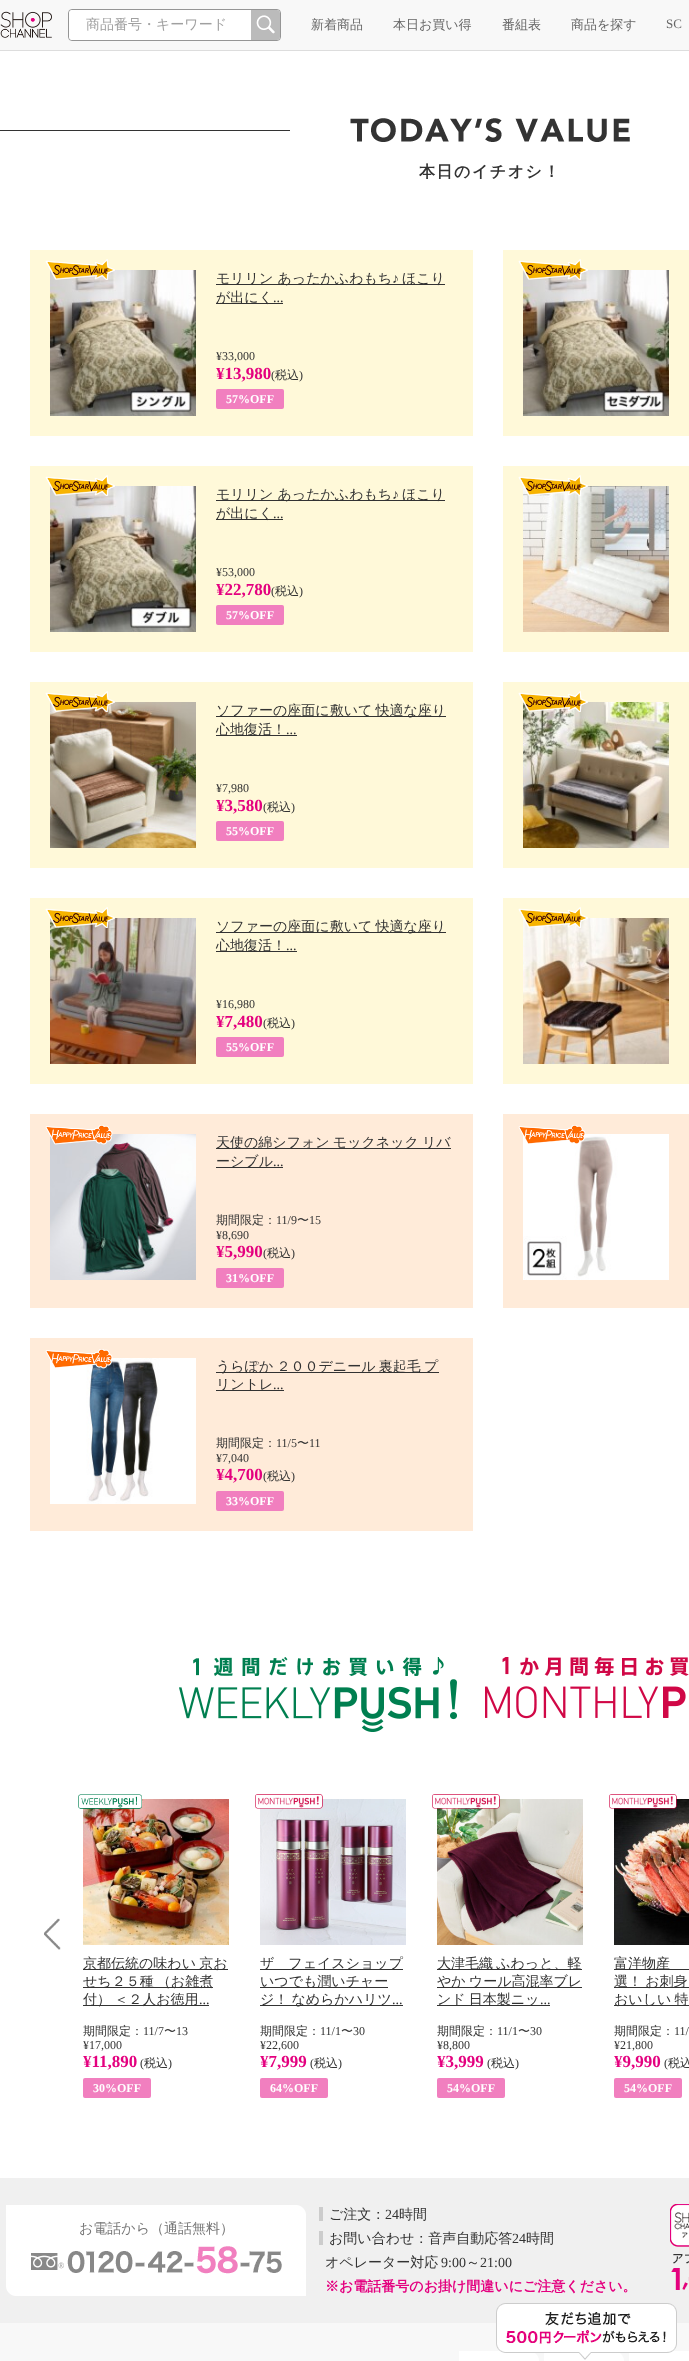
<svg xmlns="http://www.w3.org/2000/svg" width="689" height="2361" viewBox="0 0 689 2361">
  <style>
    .t1 { font: 500 14px WenQuanYi Zen Hei; fill: #a0a0a0; }
    .t2 { font: 500 13px WenQuanYi Zen Hei; fill: #666; }
    .t3 { font: 13px Liberation Serif; fill: #666; }
    .t4 { font: bold 16px WenQuanYi Zen Hei; letter-spacing: 1.5px; fill: #333; }
    .t5 { font: 500 14px WenQuanYi Zen Hei; fill: #333; }
    .t6 { font: 14px Liberation Serif; fill: #333; }
    .t7 { font: 12px Liberation Serif; fill: #333; }
    .t8 { font: bold 17px Liberation Serif; fill: #e4007f; }
    .t9 { font: 500 12px WenQuanYi Zen Hei; fill: #333; }
    .t10 { font: bold 12px Liberation Serif; fill: #fff; }
    .t11 { font: 500 14px WenQuanYi Zen Hei; fill: #777; }
    .t12 { font: bold 14px WenQuanYi Zen Hei; fill: #e4007f; }
  </style>
  <rect width="100%" height="100%" fill="#fff"/>
  <rect x="0" y="0" width="689" height="50" fill="#f8f8f8"/>
  <rect x="0" y="50" width="689" height="1" fill="#ddd"/>
  <image x="0" y="11" width="52" height="27" href="images/1.png"/>
  <rect x="68.5" y="9.5" width="212" height="31" rx="3.5" fill="none" stroke="#959595"/>
  <path d="M72 10H251V40H72C70.5 40 69 38.5 69 37V13C69 11.5 70.5 10 72 10Z" fill="#fff"/>
  <text x="86" y="29" class="t1">商品番号・キーワード</text>
  <path d="M251 10H277C278.5 10 280 11.5 280 13V37C280 38.5 278.5 40 277 40H251Z" fill="#bbb"/>
  <image x="256" y="15" width="19" height="19" href="images/2.png"/>
  <text x="311" y="29" class="t2">新着商品</text>
  <text x="393" y="29" class="t2">本日お買い得</text>
  <text x="502" y="29" class="t2">番組表</text>
  <text x="571" y="29" class="t2">商品を探す</text>
  <text x="666" y="28" class="t3">SC</text>
  <image x="0" y="118" width="630" height="24" href="images/3.png"/>
  <text x="419" y="177" class="t4">本日のイチオシ！</text>
  <rect x="30" y="250" width="443" height="186" fill="#fff9d9"/>
  <image x="50" y="270" width="146" height="146" href="images/5.png"/>
  <image x="45" y="259" width="70" height="21" href="images/4.png"/>
  <rect x="216" y="284" width="229" height="1" fill="#333"/>
  <text x="216" y="283" class="t5">モリリン あったかふわもち</text>
  <text x="392" y="283" class="t6">♪</text>
  <text x="402" y="283" class="t5">ほこり</text>
  <rect x="216" y="303" width="67" height="1" fill="#333"/>
  <text x="216" y="302" class="t5">が出にく</text>
  <text x="273" y="302" class="t6">...</text>
  <text x="216" y="360" class="t7">¥33,000</text>
  <text x="216" y="379" class="t8">¥13,980</text>
  <text x="271" y="379" class="t7">(</text>
  <text x="275" y="379" class="t9">税込</text>
  <text x="299" y="379" class="t7">)</text>
  <rect x="216" y="389" width="68" height="20" rx="2" fill="#f17fbf"/>
  <text x="226" y="403" class="t10">57%OFF</text>
  <rect x="503" y="250" width="186" height="186" fill="#fff9d9"/>
  <image x="523" y="270" width="146" height="146" href="images/6.png"/>
  <image x="518" y="259" width="70" height="21" href="images/4.png"/>
  <rect x="30" y="466" width="443" height="186" fill="#fff9d9"/>
  <image x="50" y="486" width="146" height="146" href="images/7.png"/>
  <image x="45" y="475" width="70" height="21" href="images/4.png"/>
  <rect x="216" y="500" width="229" height="1" fill="#333"/>
  <text x="216" y="499" class="t5">モリリン あったかふわもち</text>
  <text x="392" y="499" class="t6">♪</text>
  <text x="402" y="499" class="t5">ほこり</text>
  <rect x="216" y="519" width="67" height="1" fill="#333"/>
  <text x="216" y="518" class="t5">が出にく</text>
  <text x="273" y="518" class="t6">...</text>
  <text x="216" y="576" class="t7">¥53,000</text>
  <text x="216" y="595" class="t8">¥22,780</text>
  <text x="271" y="595" class="t7">(</text>
  <text x="275" y="595" class="t9">税込</text>
  <text x="299" y="595" class="t7">)</text>
  <rect x="216" y="605" width="68" height="20" rx="2" fill="#f17fbf"/>
  <text x="226" y="619" class="t10">57%OFF</text>
  <rect x="503" y="466" width="186" height="186" fill="#fff9d9"/>
  <image x="523" y="486" width="146" height="146" href="images/9.png"/>
  <image x="518" y="475" width="70" height="21" href="images/8.png"/>
  <rect x="30" y="682" width="443" height="186" fill="#fff9d9"/>
  <image x="50" y="702" width="146" height="146" href="images/11.png"/>
  <image x="45" y="691" width="70" height="21" href="images/10.png"/>
  <rect x="216" y="716" width="230" height="1" fill="#333"/>
  <text x="216" y="715" word-spacing="-1" class="t5">ソファーの座面に敷いて 快適な座り</text>
  <rect x="216" y="735" width="81" height="1" fill="#333"/>
  <text x="216" y="734" class="t5">心地復活！</text>
  <text x="286" y="734" class="t6">...</text>
  <text x="216" y="792" class="t7">¥7,980</text>
  <text x="216" y="811" class="t8">¥3,580</text>
  <text x="263" y="811" class="t7">(</text>
  <text x="267" y="811" class="t9">税込</text>
  <text x="291" y="811" class="t7">)</text>
  <rect x="216" y="821" width="68" height="20" rx="2" fill="#f17fbf"/>
  <text x="226" y="835" class="t10">55%OFF</text>
  <rect x="503" y="682" width="186" height="186" fill="#fff9d9"/>
  <image x="523" y="702" width="146" height="146" href="images/13.png"/>
  <image x="518" y="691" width="70" height="21" href="images/12.png"/>
  <rect x="30" y="898" width="443" height="186" fill="#fff9d9"/>
  <image x="50" y="918" width="146" height="146" href="images/15.png"/>
  <image x="45" y="907" width="70" height="21" href="images/14.png"/>
  <rect x="216" y="932" width="230" height="1" fill="#333"/>
  <text x="216" y="931" word-spacing="-1" class="t5">ソファーの座面に敷いて 快適な座り</text>
  <rect x="216" y="951" width="81" height="1" fill="#333"/>
  <text x="216" y="950" class="t5">心地復活！</text>
  <text x="286" y="950" class="t6">...</text>
  <text x="216" y="1008" class="t7">¥16,980</text>
  <text x="216" y="1027" class="t8">¥7,480</text>
  <text x="263" y="1027" class="t7">(</text>
  <text x="267" y="1027" class="t9">税込</text>
  <text x="291" y="1027" class="t7">)</text>
  <rect x="216" y="1037" width="68" height="20" rx="2" fill="#f17fbf"/>
  <text x="226" y="1051" class="t10">55%OFF</text>
  <rect x="503" y="898" width="186" height="186" fill="#fff9d9"/>
  <image x="523" y="918" width="146" height="146" href="images/17.png"/>
  <image x="518" y="907" width="70" height="21" href="images/16.png"/>
  <rect x="30" y="1114" width="443" height="194" fill="#ffebd9"/>
  <image x="50" y="1134" width="146" height="146" href="images/19.png"/>
  <image x="45" y="1125" width="68" height="20" href="images/18.png"/>
  <rect x="216" y="1148" width="235" height="1" fill="#333"/>
  <text x="216" y="1147" word-spacing="-1" class="t5">天使の綿シフォン モックネック リバ</text>
  <rect x="216" y="1167" width="67" height="1" fill="#333"/>
  <text x="216" y="1166" class="t5">ーシブル</text>
  <text x="273" y="1166" class="t6">...</text>
  <text x="216" y="1224" class="t9">期間限定：</text>
  <text x="276" y="1224" class="t7">11/9</text>
  <text x="297" y="1224" class="t9">〜</text>
  <text x="309" y="1224" class="t7">15</text>
  <text x="216" y="1239" class="t7">¥8,690</text>
  <text x="216" y="1257" class="t8">¥5,990</text>
  <text x="263" y="1257" class="t7">(</text>
  <text x="267" y="1257" class="t9">税込</text>
  <text x="291" y="1257" class="t7">)</text>
  <rect x="216" y="1268" width="68" height="20" rx="2" fill="#f17fbf"/>
  <text x="226" y="1282" class="t10">31%OFF</text>
  <rect x="503" y="1114" width="186" height="194" fill="#ffebd9"/>
  <image x="523" y="1134" width="146" height="146" href="images/21.png"/>
  <image x="518" y="1125" width="68" height="19" href="images/20.png"/>
  <rect x="30" y="1338" width="443" height="193" fill="#ffebd9"/>
  <image x="50" y="1358" width="146" height="146" href="images/23.png"/>
  <image x="45" y="1349" width="68" height="20" href="images/22.png"/>
  <rect x="216" y="1372" width="223" height="1" fill="#333"/>
  <text x="216" y="1371" word-spacing="-1" class="t5">うらぽか ２００デニール 裏起毛 プ</text>
  <rect x="216" y="1390" width="68" height="1" fill="#333"/>
  <text x="216" y="1389" class="t5">リントレ</text>
  <text x="273" y="1389" class="t6">...</text>
  <text x="216" y="1447" class="t9">期間限定：</text>
  <text x="276" y="1447" class="t7">11/5</text>
  <text x="297" y="1447" class="t9">〜</text>
  <text x="309" y="1447" class="t7">11</text>
  <text x="216" y="1462" class="t7">¥7,040</text>
  <text x="216" y="1480" class="t8">¥4,700</text>
  <text x="263" y="1480" class="t7">(</text>
  <text x="267" y="1480" class="t9">税込</text>
  <text x="291" y="1480" class="t7">)</text>
  <rect x="216" y="1491" width="68" height="20" rx="2" fill="#f17fbf"/>
  <text x="226" y="1505" class="t10">33%OFF</text>
  <image x="179" y="1657" width="510" height="75" href="images/24.png"/>
  <image x="44" y="1918" width="17" height="32" href="images/25.png"/>
  <image x="83" y="1799" width="146" height="146" href="images/27.png"/>
  <image x="78" y="1794" width="64" height="15" href="images/26.png"/>
  <rect x="83" y="1969" width="145" height="1" fill="#333"/>
  <text x="83" y="1968" word-spacing="-1" class="t5">京都伝統の味わい 京お</text>
  <rect x="83" y="1987" width="130" height="1" fill="#333"/>
  <text x="83" y="1986" word-spacing="-1" class="t5">せち２５種 （お雑煮</text>
  <rect x="83" y="2005" width="126" height="1" fill="#333"/>
  <text x="83" y="2004" word-spacing="-1" class="t5">付） ＜２人お徳用</text>
  <text x="199" y="2004" class="t6">...</text>
  <text x="83" y="2035" class="t9">期間限定：</text>
  <text x="143" y="2035" class="t7">11/7</text>
  <text x="164" y="2035" class="t9">〜</text>
  <text x="176" y="2035" class="t7">13</text>
  <text x="83" y="2049" class="t7">¥17,000</text>
  <text x="83" y="2067" class="t8">¥11,890</text>
  <text x="140" y="2067" class="t7">(</text>
  <text x="144" y="2067" class="t9">税込</text>
  <text x="168" y="2067" class="t7">)</text>
  <rect x="83" y="2078" width="68" height="20" rx="2" fill="#f17fbf"/>
  <text x="93" y="2092" class="t10">30%OFF</text>
  <image x="260" y="1799" width="146" height="146" href="images/29.png"/>
  <image x="255" y="1794" width="68" height="15" href="images/28.png"/>
  <rect x="260" y="1969" width="143" height="1" fill="#333"/>
  <text x="260" y="1968" class="t5">ザ　フェイスショップ</text>
  <rect x="260" y="1987" width="128" height="1" fill="#333"/>
  <text x="260" y="1986" class="t5">いつでも潤いチャー</text>
  <rect x="260" y="2005" width="143" height="1" fill="#333"/>
  <text x="260" y="2004" word-spacing="-1" class="t5">ジ！ なめらかハリツ</text>
  <text x="392" y="2004" class="t6">...</text>
  <text x="260" y="2035" class="t9">期間限定：</text>
  <text x="320" y="2035" class="t7">11/1</text>
  <text x="341" y="2035" class="t9">〜</text>
  <text x="353" y="2035" class="t7">30</text>
  <text x="260" y="2049" class="t7">¥22,600</text>
  <text x="260" y="2067" class="t8">¥7,999</text>
  <text x="310" y="2067" class="t7">(</text>
  <text x="314" y="2067" class="t9">税込</text>
  <text x="338" y="2067" class="t7">)</text>
  <rect x="260" y="2078" width="68" height="20" rx="2" fill="#f17fbf"/>
  <text x="270" y="2092" class="t10">64%OFF</text>
  <image x="437" y="1799" width="146" height="146" href="images/31.png"/>
  <image x="432" y="1794" width="68" height="15" href="images/30.png"/>
  <rect x="437" y="1969" width="145" height="1" fill="#333"/>
  <text x="437" y="1968" word-spacing="-1" class="t5">大津毛織 ふわっと、軽</text>
  <rect x="437" y="1987" width="145" height="1" fill="#333"/>
  <text x="437" y="1986" word-spacing="-1" class="t5">やか ウール高混率ブレ</text>
  <rect x="437" y="2005" width="113" height="1" fill="#333"/>
  <text x="437" y="2004" word-spacing="-1" class="t5">ンド 日本製ニッ</text>
  <text x="540" y="2004" class="t6">...</text>
  <text x="437" y="2035" class="t9">期間限定：</text>
  <text x="497" y="2035" class="t7">11/1</text>
  <text x="518" y="2035" class="t9">〜</text>
  <text x="530" y="2035" class="t7">30</text>
  <text x="437" y="2049" class="t7">¥8,800</text>
  <text x="437" y="2067" class="t8">¥3,999</text>
  <text x="487" y="2067" class="t7">(</text>
  <text x="491" y="2067" class="t9">税込</text>
  <text x="515" y="2067" class="t7">)</text>
  <rect x="437" y="2078" width="68" height="20" rx="2" fill="#f17fbf"/>
  <text x="447" y="2092" class="t10">54%OFF</text>
  <image x="614" y="1799" width="75" height="146" href="images/33.png"/>
  <image x="609" y="1794" width="68" height="15" href="images/32.png"/>
  <rect x="614" y="1969" width="75" height="1" fill="#333"/>
  <text x="614" y="1968" class="t5">富洋物産</text>
  <rect x="614" y="1987" width="75" height="1" fill="#333"/>
  <text x="614" y="1986" word-spacing="-1" class="t5">選！ お刺身</text>
  <rect x="614" y="2005" width="75" height="1" fill="#333"/>
  <text x="614" y="2004" word-spacing="-1" class="t5">おいしい 特</text>
  <text x="614" y="2035" class="t9">期間限定：</text>
  <text x="674" y="2035" class="t7">11/</text>
  <text x="614" y="2049" class="t7">¥21,800</text>
  <text x="614" y="2067" class="t8">¥9,990</text>
  <text x="664" y="2067" class="t7">(</text>
  <text x="668" y="2067" class="t9">税込</text>
  <rect x="614" y="2078" width="68" height="20" rx="2" fill="#f17fbf"/>
  <text x="624" y="2092" class="t10">54%OFF</text>
  <rect x="0" y="2178" width="689" height="145" fill="#f0f0f0"/>
  <path d="M6 2205H296C301.5 2205 306 2209.5 306 2215V2296H16C10.5 2296 6 2291.5 6 2286Z" fill="#fff"/>
  <text x="79" y="2233" class="t11">お電話から（通話無料）</text>
  <image x="31" y="2246" width="251" height="28" href="images/34.png"/>
  <rect x="319" y="2207" width="4" height="14" fill="#ccc"/>
  <text x="329" y="2219" class="t5">ご注文：</text>
  <text x="385" y="2219" class="t6">24</text>
  <text x="399" y="2219" class="t5">時間</text>
  <rect x="319" y="2231" width="4" height="14" fill="#ccc"/>
  <text x="329" y="2243" class="t5">お問い合わせ：音声自動応答</text>
  <text x="512" y="2243" class="t6">24</text>
  <text x="526" y="2243" class="t5">時間</text>
  <text x="325" y="2267" class="t5">オペレーター対応</text>
  <text x="441" y="2267" class="t6">9:00</text>
  <text x="466" y="2267" class="t5">～</text>
  <text x="480" y="2267" class="t6">21:00</text>
  <text x="325" y="2291" class="t12">※お電話番号のお掛け間違いにご注意ください。</text>
  <image x="670" y="2204" width="19" height="86" href="images/35.png"/>
  <rect x="0" y="2323" width="689" height="38" fill="#f8f8f8"/>
  <path d="M459 2351H529C534.5 2351 539 2355.5 539 2361V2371H469C463.5 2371 459 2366.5 459 2361Z" fill="#fff"/>
  <path d="M544 2351H614C619.5 2351 624 2355.5 624 2361V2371H554C548.5 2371 544 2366.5 544 2361Z" fill="#fff"/>
  <rect x="629" y="2351" width="60" height="10" fill="#fff"/>
  <image x="496" y="2303" width="181" height="57" href="images/36.png"/>
</svg>
